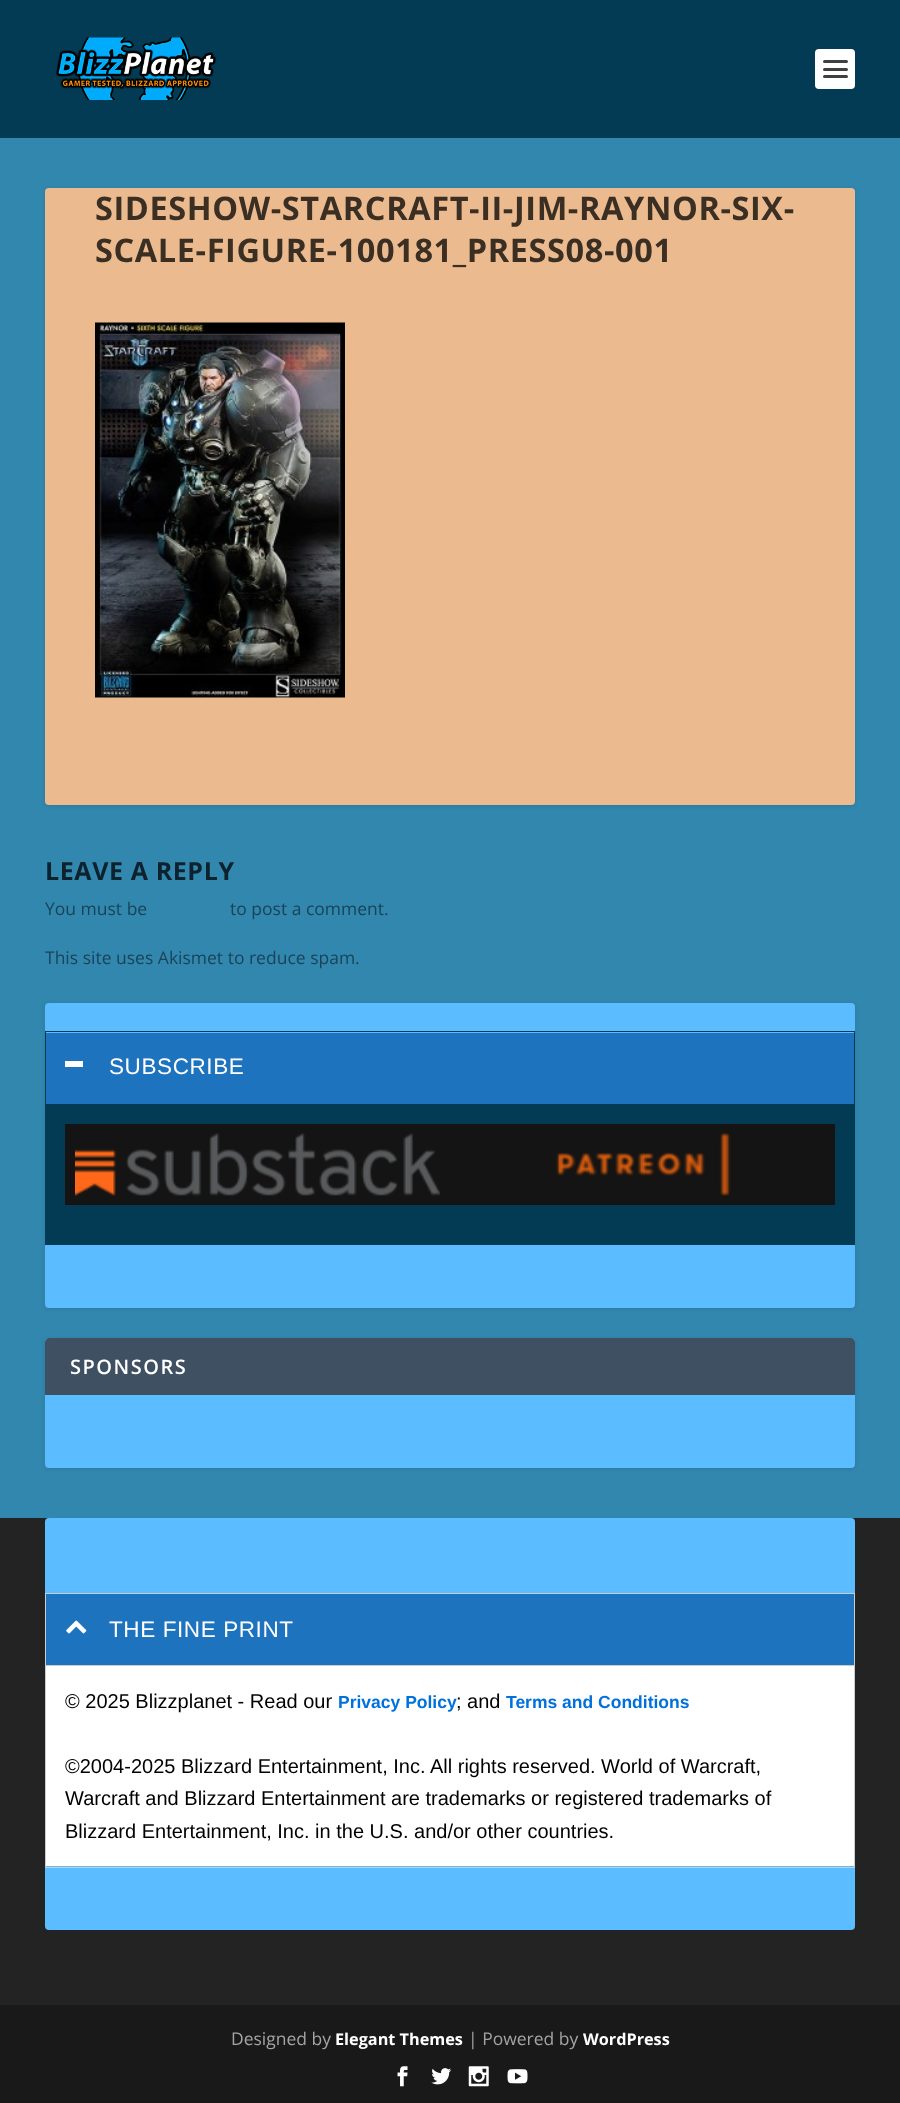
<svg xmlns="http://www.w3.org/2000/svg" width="900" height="2103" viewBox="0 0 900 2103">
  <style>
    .t1 { font: bold 32.5px Open Sans; letter-spacing: 0.6px; fill: #3b2f24; }
    .t2 { font: bold 25px Open Sans; letter-spacing: 0.6px; fill: #0d222c; }
    .t3 { font: 17.5px Open Sans; fill: #194458; }
    .t4 { font: 22.5px Liberation Sans; letter-spacing: 0.6px; fill: #fff; }
    .t5 { font: 600 20px Open Sans; letter-spacing: 1.5px; fill: #fff; }
    .t6 { font: 20px Liberation Sans; fill: #000; }
    .t7 { font: bold 17.5px Liberation Sans; fill: #0070dd; }
    .t8 { font: 17.5px Open Sans; fill: #a3a3a3; }
    .t9 { font: bold 16.25px Open Sans; fill: #fff; }
  </style>
  <rect width="100%" height="100%" fill="#3287af"/>
  <rect x="0" y="0" width="900" height="138" fill="#033b54"/>
  <image x="56" y="37" width="161" height="63" href="images/1.png"/>
  <rect x="815" y="49" width="40" height="40" rx="4" fill="#fff"/>
  <rect x="823" y="60" width="25" height="3" rx="1.5" fill="#404040"/>
  <rect x="823" y="68" width="25" height="3" rx="1.5" fill="#404040"/>
  <rect x="823" y="75" width="25" height="3" rx="1.5" fill="#404040"/>
  <rect x="45" y="189" width="810" height="617" rx="4" fill="#0000001a" filter="blur(2px)"/>
  <rect x="45" y="188" width="810" height="617" rx="4" fill="#ebbb8f"/>
  <text x="95" y="220" class="t1">SIDESHOW-STARCRAFT-II-JIM-RAYNOR-SIX-</text>
  <text x="95" y="262" class="t1">SCALE-FIGURE-100181_PRESS08-001</text>
  <image x="95" y="322" width="250" height="376" href="images/2.png"/>
  <text x="45" y="880" class="t2">LEAVE A REPLY</text>
  <text x="45" y="915" class="t3">You must be</text>
  <text x="230" y="915" class="t3">to post a comment.</text>
  <text x="45" y="964" class="t3">This site uses Akismet to reduce spam.</text>
  <rect x="45" y="1004" width="810" height="305" rx="4" fill="#0000001a" filter="blur(2px)"/>
  <rect x="45" y="1003" width="810" height="305" rx="4" fill="#5bbcff"/>
  <rect x="45.5" y="1031.5" width="809" height="213" fill="none" stroke="#033b54"/>
  <rect x="46" y="1033" width="808" height="71" fill="#1e73be"/>
  <rect x="65" y="1061" width="18" height="6" fill="#fff"/>
  <text x="109" y="1074" class="t4">SUBSCRIBE</text>
  <rect x="46" y="1104" width="808" height="140" fill="#033b54"/>
  <rect x="65" y="1124" width="770" height="81" fill="#141414"/>
  <image x="75" y="1133" width="365" height="63" href="images/3.png"/>
  <image x="556" y="1133" width="175" height="63" href="images/4.png"/>
  <rect x="45" y="1339" width="810" height="130" rx="4" fill="#0000001a" filter="blur(2px)"/>
  <rect x="45" y="1338" width="810" height="130" rx="4" fill="#5bbcff"/>
  <path d="M49 1338H851C853 1338 855 1340 855 1342V1395H45V1342C45 1340 47 1338 49 1338Z" fill="#3e5062"/>
  <text x="70" y="1374" class="t5">SPONSORS</text>
  <rect x="0" y="1518" width="900" height="487" fill="#232323"/>
  <rect x="45" y="1518" width="810" height="412" rx="4" fill="#5bbcff"/>
  <rect x="45.5" y="1593.5" width="809" height="274" fill="none" stroke="#ccc"/>
  <rect x="46" y="1594" width="808" height="71" fill="#1e73be"/>
  <image x="66" y="1620" width="21" height="14" href="images/5.png"/>
  <text x="109" y="1637" class="t4">THE FINE PRINT</text>
  <rect x="46" y="1666" width="808" height="200" fill="#fff"/>
  <rect x="46" y="1665" width="808" height="1" fill="#ccc"/>
  <text x="65" y="1708" class="t6">© 2025 Blizzplanet - Read our</text>
  <text x="338" y="1708" class="t7">Privacy Policy</text>
  <text x="456" y="1708" class="t6">; and</text>
  <text x="506" y="1708" class="t7">Terms and Conditions</text>
  <text x="65" y="1773" class="t6">©2004-2025 Blizzard Entertainment, Inc. All rights reserved. World of Warcraft,</text>
  <text x="65" y="1805" class="t6">Warcraft and Blizzard Entertainment are trademarks or registered trademarks of</text>
  <text x="65" y="1838" class="t6">Blizzard Entertainment, Inc. in the U.S. and/or other countries.</text>
  <rect x="0" y="2005" width="900" height="98" fill="#191919"/>
  <text x="231" y="2045" class="t8">Designed by</text>
  <text x="335" y="2045" class="t9">Elegant Themes</text>
  <text x="468" y="2045" class="t8">| Powered by</text>
  <text x="583" y="2045" class="t9">WordPress</text>
  <image x="397" y="2066" width="11" height="21" href="images/6.png"/>
  <image x="431" y="2068" width="21" height="17" href="images/7.png"/>
  <image x="468" y="2066" width="21" height="21" href="images/8.png"/>
  <image x="507" y="2069" width="21" height="15" href="images/9.png"/>
</svg>
